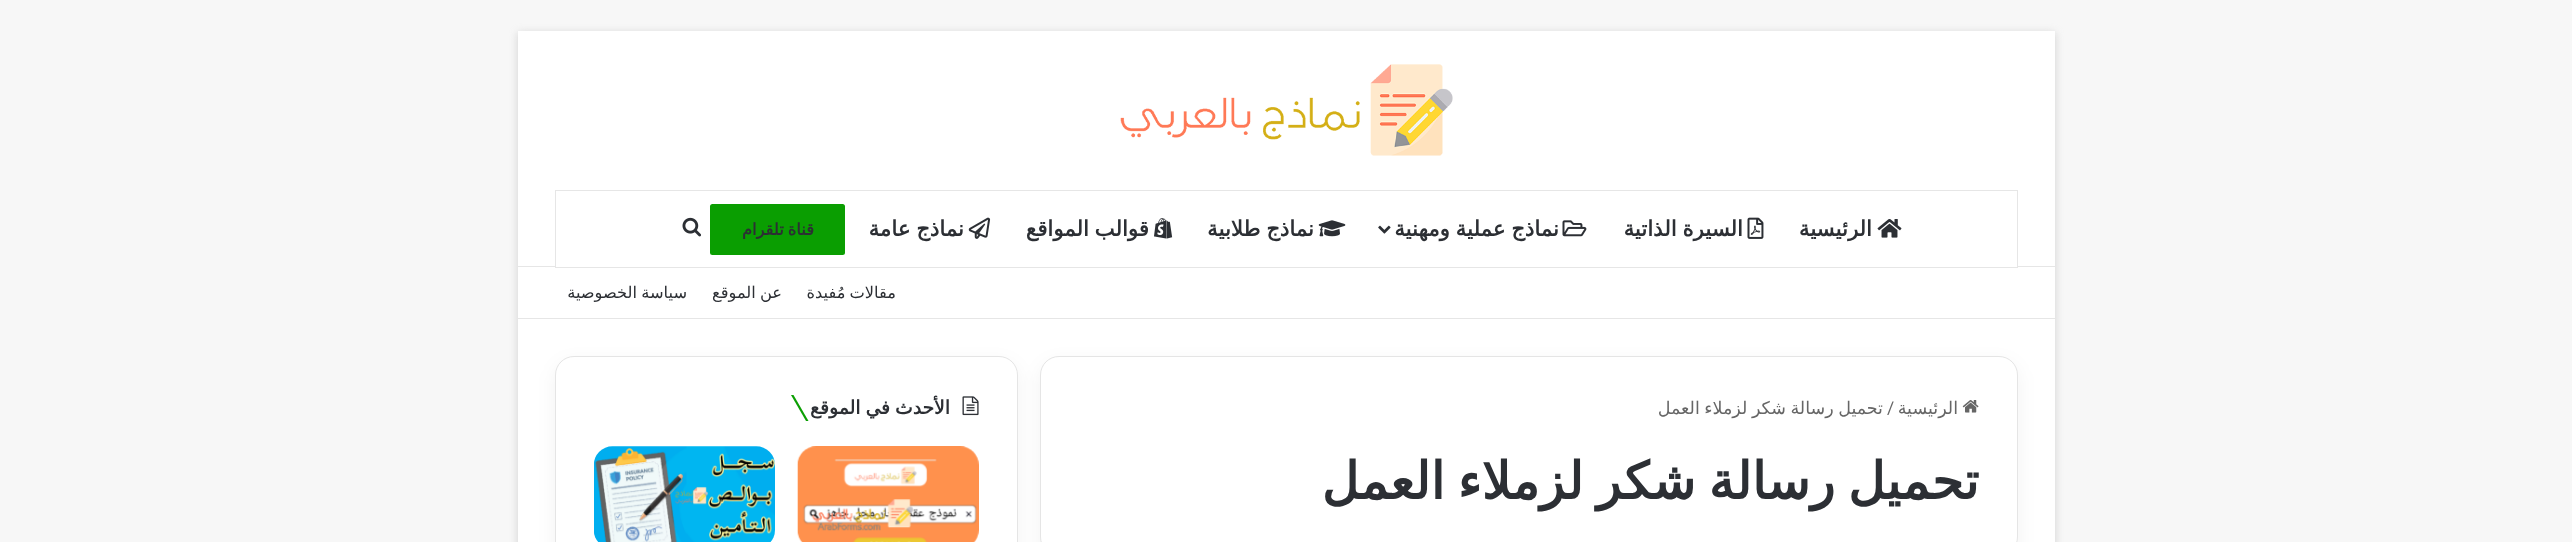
<svg xmlns="http://www.w3.org/2000/svg" width="2572" height="542" viewBox="0 0 2572 542">
  <style>
    .t1 { font: bold 21.25px DejaVu Sans; direction: rtl; fill: #2c2f34; }
    .t2 { font: bold 16.25px DejaVu Sans; direction: rtl; fill: #2c2f34; }
    .t3 { font: 16.25px DejaVu Sans; direction: rtl; fill: #2c2f34; }
    .t4 { font: 17.5px DejaVu Sans; direction: rtl; fill: #666; }
    .t5 { font: 17.5px Roboto; fill: #666; }
    .t6 { font: bold 51.25px DejaVu Sans; direction: rtl; fill: #2c2f34; }
    .t7 { font: bold 18.75px DejaVu Sans; direction: rtl; fill: #2c2f34; }
  </style>
  <rect width="100%" height="100%" fill="#f7f7f7"/>
  <rect x="518" y="33" width="1537" height="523" fill="#ababab80" filter="blur(4.5px)"/>
  <rect x="518" y="31" width="1537" height="511" fill="#fff"/>
  <image x="1120" y="64" width="333" height="92" href="images/1.png"/>
  <rect x="518" y="266" width="1537" height="1" fill="#e6e6e6"/>
  <rect x="556" y="266" width="1461" height="1" fill="#fff"/>
  <rect x="555.5" y="190.5" width="1462" height="77" fill="none" stroke="#e6e6e6"/>
  <image x="1877" y="219" width="25" height="19" href="images/2.png"/>
  <text x="1872" y="236" class="t1">الرئيسية</text>
  <image x="1747" y="217" width="17" height="22" href="images/3.png"/>
  <text x="1743" y="236" word-spacing="-1" class="t1">السيرة الذاتية</text>
  <image x="1562" y="220" width="25" height="17" href="images/4.png"/>
  <text x="1559" y="236" word-spacing="-1" class="t1">نماذج عملية ومهنية</text>
  <image x="1378" y="225" width="13" height="9" href="images/5.png"/>
  <image x="1318" y="220" width="28" height="17" href="images/6.png"/>
  <text x="1314" y="236" word-spacing="-1" class="t1">نماذج طلابية</text>
  <image x="1154" y="218" width="19" height="21" href="images/7.png"/>
  <text x="1149" y="236" word-spacing="-1" class="t1">قوالب المواقع</text>
  <image x="968" y="217" width="23" height="22" href="images/8.png"/>
  <text x="964" y="236" word-spacing="-1" class="t1">نماذج عامة</text>
  <rect x="710" y="204" width="135" height="51" rx="2.5" fill="#0a9e01"/>
  <text x="814" y="235" word-spacing="-1" class="t2">قناة تلقرام</text>
  <image x="682" y="217" width="19" height="20" href="images/9.png"/>
  <rect x="518" y="318" width="1537" height="1" fill="#e6e6e6"/>
  <text x="896" y="298" word-spacing="-1" class="t3">مقالات مُفيدة</text>
  <text x="782" y="298" word-spacing="-1" class="t3">عن الموقع</text>
  <text x="687" y="298" word-spacing="-1" class="t3">سياسة الخصوصية</text>
  <rect x="1040" y="363" width="978" height="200" rx="19" fill="#0000000d" filter="blur(9.5px)"/>
  <rect x="1040.5" y="356.5" width="977" height="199" rx="18.5" fill="#fff" stroke="#e5e5e5"/>
  <image x="1962" y="400" width="17" height="13" href="images/10.png"/>
  <text x="1958" y="414" class="t4">الرئيسية</text>
  <text x="1887" y="414" class="t5">/</text>
  <text x="1883" y="414" word-spacing="-1" class="t4">تحميل رسالة شكر لزملاء العمل</text>
  <text x="1979" y="499" word-spacing="-3.5" class="t6">تحميل رسالة شكر لزملاء العمل</text>
  <rect x="555" y="363" width="463" height="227" rx="19" fill="#0000000d" filter="blur(9.5px)"/>
  <rect x="555.5" y="356.5" width="462" height="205" rx="18.5" fill="#fff" stroke="#e5e5e5"/>
  <image x="962" y="396" width="17" height="20" href="images/11.png"/>
  <text x="950" y="414" word-spacing="-1" class="t7">الأحدث في الموقع</text>
  <path d="M791 395H793.5L808.5 421H806Z" fill="#0c9f04"/>
  <image x="797" y="446" width="182" height="96" href="images/12.png"/>
  <image x="594" y="446" width="181" height="96" href="images/13.png"/>
</svg>
